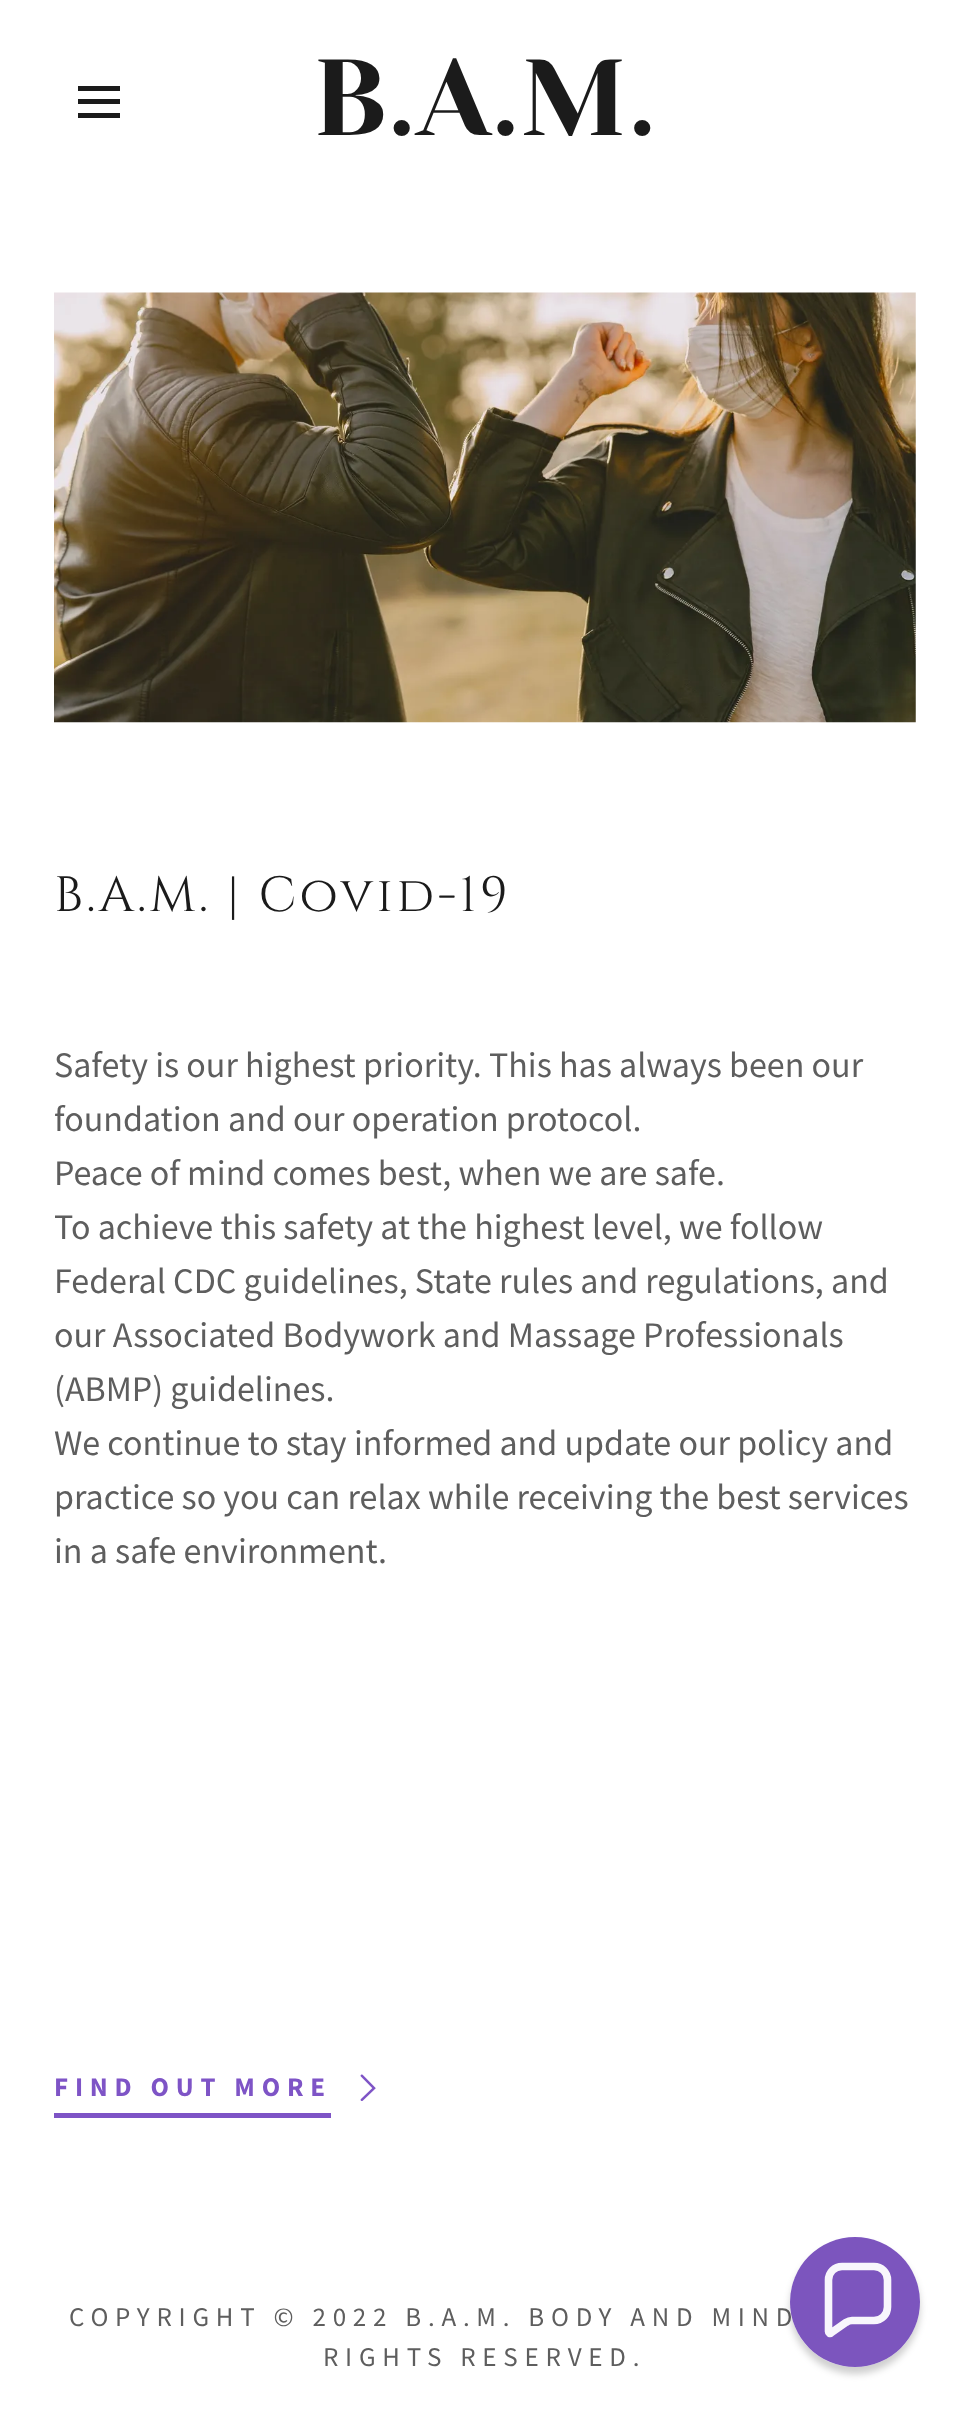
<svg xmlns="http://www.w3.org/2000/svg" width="968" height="2416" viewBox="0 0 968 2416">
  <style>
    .t1 { font: 108px Yeseva One; letter-spacing: 2.25px; fill: #1b1b1b; }
    .t2 { font: 49.5px Cinzel; letter-spacing: 3.4px; fill: #1b1b1b; }
    .t3 { font: 36px Source Sans Pro; fill: #5e5e5e; }
    .t4 { font: bold 27px Source Sans Pro; letter-spacing: 6.75px; fill: #7e54c6; }
    .t5 { font: 27px Source Sans Pro; letter-spacing: 6.75px; fill: #5e5e5e; }
  </style>
  <defs>
    <clipPath id="clip1"><path d="M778 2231H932V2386H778ZM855 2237C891 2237 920 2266 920 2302C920 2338 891 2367 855 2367C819 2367 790 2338 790 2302C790 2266 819 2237 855 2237Z" clip-rule="evenodd"/></clipPath>
  </defs>
  <rect width="100%" height="100%" fill="#fff"/>
  <rect x="78" y="86" width="42" height="5" fill="#1b1b1b"/>
  <rect x="78" y="99" width="42" height="5" fill="#1b1b1b"/>
  <rect x="78" y="113" width="42" height="5" fill="#1b1b1b"/>
  <text x="313" y="135" class="t1">B.A.M.</text>
  <image x="54" y="292" width="862" height="431" href="images/1.png"/>
  <text x="54" y="911" class="t2">B.A.M. | Covid-19</text>
  <text x="54" y="1077" class="t3">Safety is our highest priority. This has always been our</text>
  <text x="54" y="1131" class="t3">foundation and our operation protocol.</text>
  <text x="54" y="1185" class="t3">Peace of mind comes best, when we are safe.</text>
  <text x="54" y="1239" class="t3">To achieve this safety at the highest level, we follow</text>
  <text x="54" y="1293" class="t3">Federal CDC guidelines, State rules and regulations, and</text>
  <text x="54" y="1347" class="t3">our Associated Bodywork and Massage Professionals</text>
  <text x="54" y="1401" class="t3">(ABMP) guidelines.</text>
  <text x="54" y="1455" class="t3">We continue to stay informed and update our policy and</text>
  <text x="54" y="1509" class="t3">practice so you can relax while receiving the best services</text>
  <text x="54" y="1563" class="t3">in a safe environment.</text>
  <rect x="54" y="2113" width="277" height="5" fill="#7e54c6"/>
  <text x="54" y="2096" class="t4">FIND OUT MORE</text>
  <image x="360" y="2074" width="16" height="27" href="images/2.png"/>
  <text x="69" y="2326" class="t5">COPYRIGHT © 2022 B.A.M. BODY AND MIND</text>
  <text x="323" y="2366" class="t5">RIGHTS RESERVED.</text>
  <g clip-path="url(#clip1)">
    <rect x="790" y="2243" width="130" height="131" rx="65" fill="#00000030" filter="blur(3.5px)"/>
  </g>
  <circle cx="855" cy="2302" r="65" fill="#754cbaf2"/>
  <path d="M874 2266.5H842C834.5 2266.5 828.5 2272.5 828.5 2280V2331.5C828.5 2333 830 2334 831 2333L846 2322.5C847.5 2321.5 849.5 2320.5 852 2320.5H874C881.5 2320.5 887.5 2314.5 887.5 2307V2280C887.5 2272.5 881.5 2266.5 874 2266.5Z" fill="none" stroke="#fffffff2" stroke-width="7.6"/>
</svg>
